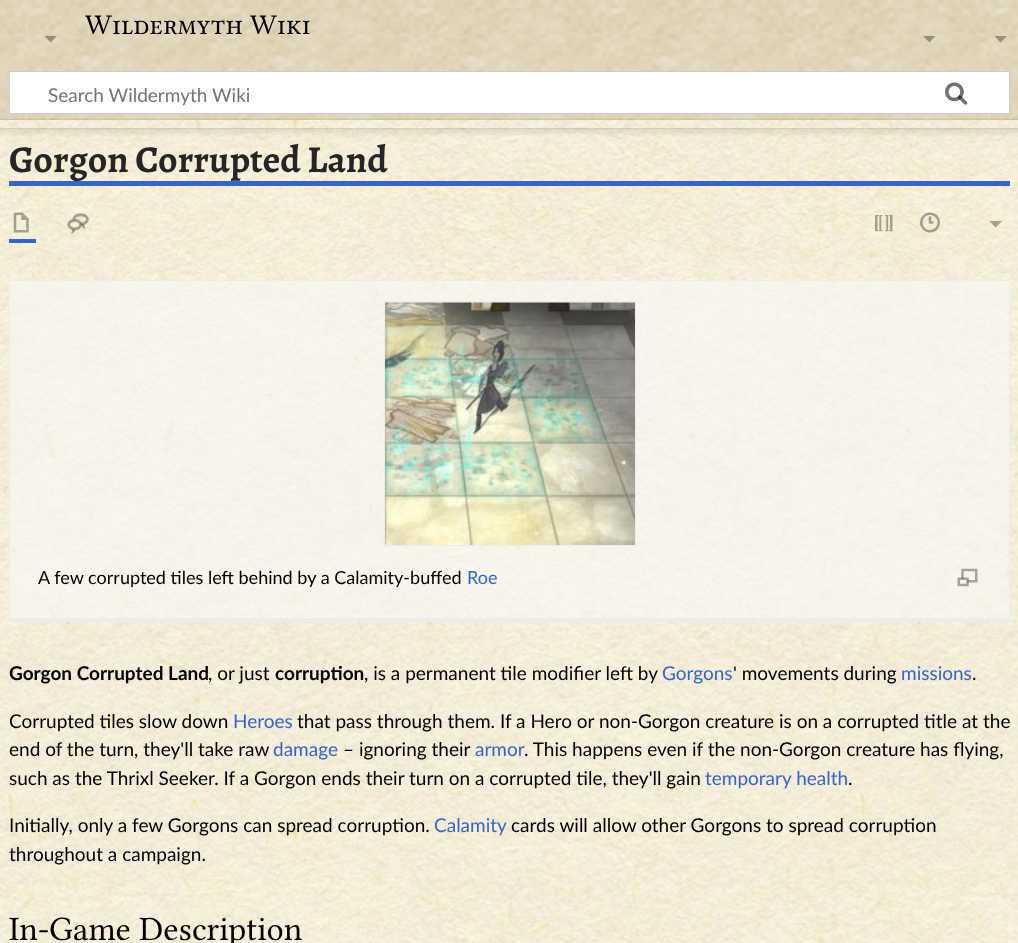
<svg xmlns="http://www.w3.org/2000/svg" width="1018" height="943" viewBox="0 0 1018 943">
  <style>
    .t1 { font: 28.5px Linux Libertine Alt; fill: #000; }
    .t2 { font: 19px Lato; fill: #757575; }
    .t3 { font: bold 38px Alegreya; fill: #252525; }
    .t4 { font: 18.05px Lato; fill: #000; }
    .t5 { font: 18.05px Lato; fill: #36c; }
    .t6 { font: bold 19px Lato; fill: #000; }
    .t7 { font: 19px Lato; fill: #000; }
    .t8 { font: 19px Lato; fill: #36c; }
    .t9 { font: 34.25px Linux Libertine; fill: #000; }
  </style>
  <defs>
    <clipPath id="clip1"><path d="M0 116H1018V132H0ZM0 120H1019V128H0Z" clip-rule="evenodd"/></clipPath>
    <clipPath id="clip2"><path d="M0 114H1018V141H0ZM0 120H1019V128H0Z" clip-rule="evenodd"/></clipPath>
  </defs>
  <rect width="100%" height="100%" fill="#fff"/>
  <image x="0" y="0" width="1018" height="120" href="images/1.png"/>
  <text x="85" y="34" class="t1">Wildermyth Wiki</text>
  <path d="M1007 36L1000.5 42.5L994.5 36Z" fill="#00000054"/>
  <rect x="9.5" y="71.5" width="1000" height="42" fill="#fff" stroke="#c8ccd1"/>
  <image x="945" y="82" width="23" height="23" href="images/2.png"/>
  <text x="48" y="102" class="t2">Search Wildermyth Wiki</text>
  <image x="945" y="82" width="23" height="23" href="images/3.png"/>
  <image x="0" y="120" width="1018" height="823" href="images/4.png"/>
  <g clip-path="url(#clip1)">
    <rect x="0" y="120" width="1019" height="8" fill="#00000033" filter="blur(1px)"/>
  </g>
  <g clip-path="url(#clip2)">
    <rect x="-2" y="121" width="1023" height="13" fill="#00000012" filter="blur(2px)"/>
  </g>
  <path d="M57 36L50.5 42.5L44.5 36Z" fill="#00000054"/>
  <path d="M935.5 36L929.5 42.5L923 36Z" fill="#00000054"/>
  <rect x="9" y="181" width="1001" height="5" fill="#36c"/>
  <text x="9" y="172" class="t3">Gorgon Corrupted Land</text>
  <rect x="9" y="239" width="27" height="4" fill="#36c"/>
  <image x="13" y="212" width="16" height="21" href="images/5.png"/>
  <image x="67" y="213" width="22" height="21" href="images/6.png"/>
  <image x="875" y="215" width="18" height="17" href="images/7.png"/>
  <image x="920" y="212" width="20" height="21" href="images/8.png"/>
  <path d="M1002 221L995.5 227.5L989.5 221Z" fill="#00000054"/>
  <rect x="10" y="281" width="999" height="337" fill="#f9f9f999"/>
  <rect x="9" y="280" width="1001" height="1" fill="#eaecf0"/>
  <rect x="1009" y="280" width="1" height="341" fill="#eaecf0"/>
  <rect x="9" y="618" width="1001" height="4" fill="#eaecf0"/>
  <rect x="9" y="280" width="1" height="341" fill="#eaecf0"/>
  <rect x="384.5" y="301.5" width="251" height="244" fill="none" stroke="#eaecf0"/>
  <image x="385" y="302" width="250" height="243" href="images/9.png"/>
  <text x="38" y="584" class="t4">A few corrupted tiles left behind by a Calamity-buffed</text>
  <text x="467" y="584" class="t5">Roe</text>
  <image x="957" y="568" width="21" height="19" href="images/10.png"/>
  <text x="9" y="680" class="t6">Gorgon Corrupted Land</text>
  <text x="208" y="680" class="t7">, or just</text>
  <text x="275" y="680" class="t6">corruption</text>
  <text x="364" y="680" class="t7">, is a permanent tile modifier left by</text>
  <text x="662" y="680" class="t8">Gorgons</text>
  <text x="733" y="680" class="t7">' movements during</text>
  <text x="901" y="680" class="t8">missions</text>
  <text x="972" y="680" class="t7">.</text>
  <text x="9" y="728" class="t7">Corrupted tiles slow down</text>
  <text x="233" y="728" class="t8">Heroes</text>
  <text x="297" y="728" class="t7">that pass through them. If a Hero or non-Gorgon creature is on a corrupted title at the</text>
  <text x="9" y="756" class="t7">end of the turn, they'll take raw</text>
  <text x="273" y="756" class="t8">damage</text>
  <text x="343" y="756" class="t7">– ignoring their</text>
  <text x="475" y="756" class="t8">armor</text>
  <text x="524" y="756" class="t7">. This happens even if the non-Gorgon creature has flying,</text>
  <text x="9" y="785" class="t7">such as the Thrixl Seeker. If a Gorgon ends their turn on a corrupted tile, they'll gain</text>
  <text x="705" y="785" class="t8">temporary health</text>
  <text x="848" y="785" class="t7">.</text>
  <text x="9" y="832" class="t7">Initially, only a few Gorgons can spread corruption.</text>
  <text x="434" y="832" class="t8">Calamity</text>
  <text x="511" y="832" class="t7">cards will allow other Gorgons to spread corruption</text>
  <text x="9" y="861" class="t7">throughout a campaign.</text>
  <text x="9" y="940" class="t9">In-Game Description</text>
</svg>
